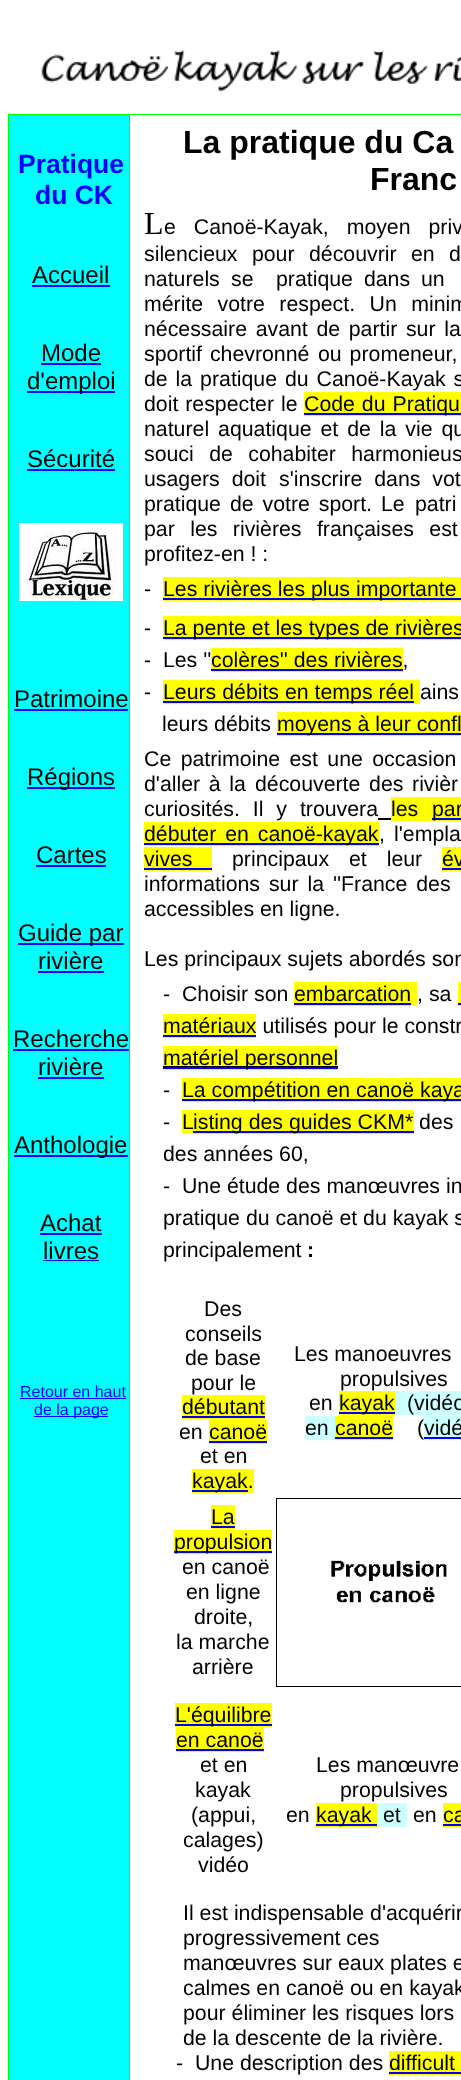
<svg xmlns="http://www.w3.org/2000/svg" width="461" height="2080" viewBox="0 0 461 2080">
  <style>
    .t1 { font: bold 26.5px Liberation Sans; fill: #00f; }
    .t2 { font: 24px Liberation Sans; fill: #000; }
    .t3 { font: 16px Liberation Sans; fill: #00f; }
    .t4 { font: bold 32px Liberation Sans; fill: #000; }
    .t5 { font: 32px Liberation Serif; fill: #000; }
    .t6 { font: 21.3px Liberation Sans; fill: #000; }
    .t7 { font: bold 21.3px Liberation Sans; fill: #000; }
  </style>
  <rect width="100%" height="100%" fill="#fff"/>
  <image x="41" y="50" width="420" height="42" href="images/1.png"/>
  <rect x="9" y="115" width="120" height="1965" fill="#0ff"/>
  <rect x="8" y="114" width="453" height="1" fill="#0f0"/>
  <rect x="129" y="114" width="1" height="1966" fill="#0f0"/>
  <rect x="8" y="114" width="1" height="1966" fill="#0f0"/>
  <text x="18" y="173" class="t1">Pratique</text>
  <text x="35" y="204" class="t1">du CK</text>
  <text x="32" y="283" class="t2">Accueil</text>
  <rect x="32" y="285" width="78" height="2" fill="#00f"/>
  <text x="41" y="361" class="t2">Mode</text>
  <rect x="41" y="363" width="60" height="2" fill="#00f"/>
  <rect x="27" y="391" width="88" height="2" fill="#00f"/>
  <text x="27" y="389" class="t2">d'emploi</text>
  <text x="27" y="467" class="t2">Sécurité</text>
  <rect x="27" y="469" width="88" height="2" fill="#00f"/>
  <image x="19" y="523" width="104" height="78" href="images/2.png"/>
  <text x="14" y="707" class="t2">Patrimoine</text>
  <rect x="14" y="709" width="114" height="2" fill="#00f"/>
  <rect x="27" y="787" width="88" height="2" fill="#00f"/>
  <text x="27" y="785" class="t2">Régions</text>
  <text x="36" y="863" class="t2">Cartes</text>
  <rect x="36" y="865" width="70" height="2" fill="#00f"/>
  <rect x="18" y="943" width="106" height="2" fill="#00f"/>
  <text x="18" y="941" class="t2">Guide par</text>
  <text x="38" y="969" class="t2">rivière</text>
  <rect x="38" y="971" width="66" height="2" fill="#00f"/>
  <text x="13" y="1047" class="t2">Recherche</text>
  <rect x="13" y="1049" width="116" height="2" fill="#00f"/>
  <text x="38" y="1075" class="t2">rivière</text>
  <rect x="38" y="1077" width="66" height="2" fill="#00f"/>
  <rect x="14" y="1155" width="114" height="2" fill="#00f"/>
  <text x="14" y="1153" class="t2">Anthologie</text>
  <text x="40" y="1231" class="t2">Achat</text>
  <rect x="40" y="1233" width="62" height="2" fill="#00f"/>
  <text x="43" y="1259" class="t2">livres</text>
  <rect x="43" y="1260" width="56" height="1" fill="#00f"/>
  <text x="20" y="1397" class="t3">Retour en haut</text>
  <rect x="20" y="1398" width="106" height="1" fill="#00f"/>
  <rect x="34" y="1416" width="74" height="1" fill="#00f"/>
  <text x="34" y="1415" class="t3">de la page</text>
  <text x="183" y="153" class="t4">La pratique du Ca</text>
  <text x="370" y="190" class="t4">Franc</text>
  <text x="144" y="234" class="t5">L</text>
  <text x="164" y="234" word-spacing="12" class="t6">e Canoë-Kayak, moyen priv</text>
  <text x="144" y="261" word-spacing="8.5" class="t6">silencieux pour découvrir en d</text>
  <text x="144" y="286" class="t6">naturels</text>
  <text x="231" y="286" class="t6">se</text>
  <text x="276" y="286" word-spacing="5" class="t6">pratique dans un</text>
  <text x="144" y="311" word-spacing="8.5" class="t6">mérite votre respect. Un minim</text>
  <text x="144" y="336" word-spacing="2.75" class="t6">nécessaire avant de partir sur la</text>
  <text x="144" y="361" word-spacing="2" class="t6">sportif chevronné</text>
  <text x="318" y="361" word-spacing="2" class="t6">ou promeneur,</text>
  <text x="144" y="386" word-spacing="2" class="t6">de la pratique du Canoë-Kayak s</text>
  <text x="144" y="411" word-spacing="1" class="t6">doit respecter le</text>
  <rect x="304" y="392" width="157" height="24" fill="#ff0"/>
  <rect x="304" y="413" width="157" height="2" fill="#00f"/>
  <text x="304" y="411" word-spacing="1" class="t6">Code du Pratiqu</text>
  <text x="144" y="436" word-spacing="3" class="t6">naturel aquatique et de la vie qu</text>
  <text x="144" y="461" word-spacing="9.5" class="t6">souci de cohabiter harmonieus</text>
  <text x="144" y="486" word-spacing="6" class="t6">usagers doit</text>
  <text x="279" y="486" word-spacing="6" class="t6">s'inscrire dans vot</text>
  <text x="144" y="511" word-spacing="3" class="t6">pratique de votre sport. Le</text>
  <text x="415" y="511" word-spacing="3" class="t6">patri</text>
  <text x="144" y="536" word-spacing="9.5" class="t6">par les rivières françaises est</text>
  <text x="144" y="561" class="t6">profitez-en ! :</text>
  <text x="144" y="596" class="t6">-</text>
  <rect x="163" y="577" width="298" height="24" fill="#ff0"/>
  <rect x="163" y="598" width="298" height="2" fill="#00f"/>
  <text x="163" y="596" class="t6">Les rivières les plus importante</text>
  <text x="144" y="635" class="t6">-</text>
  <rect x="163" y="616" width="298" height="24" fill="#ff0"/>
  <rect x="163" y="637" width="298" height="2" fill="#00f"/>
  <text x="163" y="635" class="t6">La pente et les types de rivières</text>
  <text x="144" y="667" class="t6" xml:space="preserve">-  Les ''</text>
  <rect x="211" y="648" width="192" height="24" fill="#ff0"/>
  <rect x="211" y="669" width="192" height="2" fill="#00f"/>
  <text x="211" y="667" class="t6">colères'' des rivières,</text>
  <text x="144" y="699" class="t6">-</text>
  <rect x="163" y="680" width="257" height="24" fill="#ff0"/>
  <rect x="163" y="701" width="251" height="2" fill="#00f"/>
  <text x="163" y="699" class="t6">Leurs débits en temps réel ains</text>
  <text x="162" y="731" class="t6">leurs débits</text>
  <rect x="277" y="712" width="184" height="24" fill="#ff0"/>
  <rect x="277" y="733" width="184" height="2" fill="#00f"/>
  <text x="277" y="731" class="t6">moyens à leur confl</text>
  <text x="144" y="766" word-spacing="3.5" class="t6">Ce patrimoine est une occasion</text>
  <text x="144" y="791" word-spacing="2.75" class="t6">d'aller à la</text>
  <text x="255" y="791" word-spacing="2.75" class="t6">découverte des rivièr</text>
  <text x="144" y="816" word-spacing="7" class="t6">curiosités. Il y trouvera</text>
  <rect x="378" y="818" width="13" height="2" fill="#000"/>
  <rect x="391" y="797" width="70" height="24" fill="#ff0"/>
  <text x="391" y="816" class="t6">les</text>
  <rect x="432" y="818" width="29" height="2" fill="#00f"/>
  <text x="432" y="816" word-spacing="7" class="t6">par</text>
  <rect x="144" y="822" width="235" height="24" fill="#ff0"/>
  <rect x="144" y="843" width="235" height="2" fill="#00f"/>
  <text x="144" y="841" word-spacing="3" class="t6">débuter en canoë-kayak</text>
  <text x="379" y="841" class="t6">,</text>
  <text x="394" y="841" word-spacing="3" class="t6">l'empla</text>
  <rect x="144" y="847" width="68" height="24" fill="#ff0"/>
  <text x="144" y="866" class="t6">vives</text>
  <rect x="144" y="868" width="68" height="2" fill="#00f"/>
  <text x="232" y="866" word-spacing="14" class="t6">principaux et leur</text>
  <rect x="442" y="847" width="19" height="24" fill="#ff0"/>
  <text x="442" y="866" class="t6">év</text>
  <rect x="442" y="868" width="19" height="2" fill="#00f"/>
  <text x="144" y="891" word-spacing="3" class="t6">informations sur la ''France des</text>
  <text x="144" y="916" class="t6">accessibles en ligne.</text>
  <text x="144" y="966" class="t6">Les principaux sujets abordés son</text>
  <text x="163" y="1001" class="t6" xml:space="preserve">-  Choisir son</text>
  <rect x="294" y="982" width="123" height="24" fill="#ff0"/>
  <rect x="294" y="1003" width="117" height="2" fill="#00f"/>
  <text x="294" y="1001" class="t6">embarcation , sa</text>
  <rect x="458" y="982" width="3" height="24" fill="#ff0"/>
  <rect x="458" y="1003" width="3" height="2" fill="#00f"/>
  <rect x="163" y="1014" width="93" height="24" fill="#ff0"/>
  <rect x="163" y="1035" width="93" height="2" fill="#00f"/>
  <text x="163" y="1033" class="t6">matériaux utilisés pour le constr</text>
  <rect x="163" y="1046" width="175" height="24" fill="#ff0"/>
  <rect x="163" y="1067" width="175" height="2" fill="#00f"/>
  <rect x="163" y="1066" width="175" height="1" fill="#000"/>
  <text x="163" y="1065" class="t6">matériel personnel</text>
  <text x="163" y="1097" class="t6">-</text>
  <rect x="182" y="1078" width="279" height="24" fill="#ff0"/>
  <rect x="182" y="1099" width="279" height="2" fill="#00f"/>
  <text x="182" y="1097" class="t6">La compétition en canoë kaya</text>
  <text x="163" y="1129" class="t6">-</text>
  <rect x="182" y="1110" width="232" height="24" fill="#ff0"/>
  <text x="182" y="1129" class="t6">L</text>
  <rect x="193" y="1131" width="221" height="2" fill="#00f"/>
  <text x="193" y="1129" class="t6">isting des guides CKM* des</text>
  <text x="163" y="1161" class="t6">des années 60,</text>
  <text x="163" y="1193" class="t6" xml:space="preserve">-  Une étude des manœuvres in</text>
  <text x="163" y="1225" class="t6">pratique du canoë et du kayak s</text>
  <text x="163" y="1257" class="t6">principalement</text>
  <text x="307" y="1257" class="t7">:</text>
  <text x="204" y="1316" class="t6">Des</text>
  <text x="185" y="1341" class="t6">conseils</text>
  <text x="185" y="1365" class="t6">de base</text>
  <text x="191" y="1390" class="t6">pour le</text>
  <rect x="182" y="1395" width="83" height="24" fill="#ff0"/>
  <text x="182" y="1414" class="t6">débutant</text>
  <rect x="182" y="1416" width="83" height="2" fill="#00f"/>
  <text x="179" y="1439" class="t6">en</text>
  <rect x="209" y="1420" width="58" height="24" fill="#ff0"/>
  <text x="209" y="1439" class="t6">canoë</text>
  <rect x="209" y="1441" width="58" height="2" fill="#00f"/>
  <text x="200" y="1463" class="t6">et en</text>
  <rect x="192" y="1469" width="62" height="24" fill="#ff0"/>
  <rect x="192" y="1490" width="56" height="2" fill="#00f"/>
  <text x="192" y="1488" class="t6">kayak.</text>
  <text x="294" y="1361" class="t6">Les manoeuvres</text>
  <text x="340" y="1386" class="t6">propulsives</text>
  <text x="309" y="1410" class="t6">en</text>
  <rect x="339" y="1391" width="56" height="24" fill="#ff0"/>
  <rect x="339" y="1412" width="56" height="2" fill="#00f"/>
  <text x="339" y="1410" class="t6">kayak</text>
  <rect x="395" y="1391" width="66" height="24" fill="#cff"/>
  <text x="407" y="1410" class="t6">(vidéo</text>
  <rect x="305" y="1416" width="30" height="24" fill="#cff"/>
  <text x="305" y="1435" class="t6">en</text>
  <rect x="335" y="1416" width="58" height="24" fill="#ff0"/>
  <text x="335" y="1435" class="t6">canoë</text>
  <rect x="335" y="1437" width="58" height="2" fill="#00f"/>
  <text x="417" y="1435" class="t6">(</text>
  <rect x="424" y="1416" width="37" height="24" fill="#cff"/>
  <rect x="424" y="1437" width="37" height="2" fill="#00f"/>
  <text x="424" y="1435" class="t6">vidé</text>
  <rect x="211" y="1505" width="24" height="24" fill="#ff0"/>
  <text x="211" y="1524" class="t6">La</text>
  <rect x="211" y="1526" width="24" height="2" fill="#00f"/>
  <rect x="174" y="1530" width="98" height="24" fill="#ff0"/>
  <rect x="174" y="1551" width="98" height="2" fill="#00f"/>
  <text x="174" y="1549" class="t6">propulsion</text>
  <text x="182" y="1574" class="t6">en canoë</text>
  <text x="186" y="1599" class="t6">en ligne</text>
  <text x="194" y="1624" class="t6">droite,</text>
  <text x="176" y="1649" class="t6">la marche</text>
  <text x="192" y="1674" class="t6">arrière</text>
  <rect x="276.5" y="1498.5" width="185" height="188" fill="none" stroke="#000"/>
  <image x="331" y="1560" width="116" height="43" href="images/3.png"/>
  <rect x="175" y="1703" width="97" height="24" fill="#ff0"/>
  <rect x="175" y="1724" width="97" height="2" fill="#00f"/>
  <text x="175" y="1722" class="t6">L'équilibre</text>
  <rect x="176" y="1728" width="88" height="24" fill="#ff0"/>
  <text x="176" y="1747" class="t6">en canoë</text>
  <rect x="176" y="1749" width="88" height="2" fill="#00f"/>
  <text x="200" y="1772" class="t6">et en</text>
  <text x="195" y="1797" class="t6">kayak</text>
  <text x="191" y="1822" class="t6">(appui,</text>
  <text x="183" y="1847" class="t6">calages)</text>
  <text x="198" y="1872" class="t6">vidéo</text>
  <text x="316" y="1772" class="t6">Les manœuvre</text>
  <text x="340" y="1797" class="t6">propulsives</text>
  <text x="286" y="1822" class="t6">en</text>
  <rect x="316" y="1803" width="61" height="24" fill="#ff0"/>
  <rect x="316" y="1824" width="61" height="2" fill="#00f"/>
  <text x="316" y="1822" class="t6">kayak</text>
  <rect x="377" y="1803" width="30" height="24" fill="#cff"/>
  <text x="383" y="1822" class="t6">et</text>
  <text x="413" y="1822" class="t6">en</text>
  <rect x="443" y="1803" width="18" height="24" fill="#ff0"/>
  <text x="443" y="1822" class="t6">ca</text>
  <rect x="443" y="1824" width="18" height="2" fill="#00f"/>
  <text x="183" y="1920" class="t6">Il est indispensable d'acquérir</text>
  <text x="183" y="1945" class="t6">progressivement ces</text>
  <text x="183" y="1970" class="t6">manœuvres sur eaux plates e</text>
  <text x="183" y="1995" class="t6">calmes en canoë ou en kayak</text>
  <text x="183" y="2020" class="t6">pour éliminer les risques lors</text>
  <text x="183" y="2045" class="t6">de la descente de la rivière.</text>
  <text x="176" y="2070" class="t6" xml:space="preserve">-  Une description des</text>
  <rect x="389" y="2051" width="72" height="24" fill="#ff0"/>
  <text x="389" y="2070" class="t6">difficult</text>
  <rect x="389" y="2072" width="72" height="2" fill="#00f"/>
</svg>
